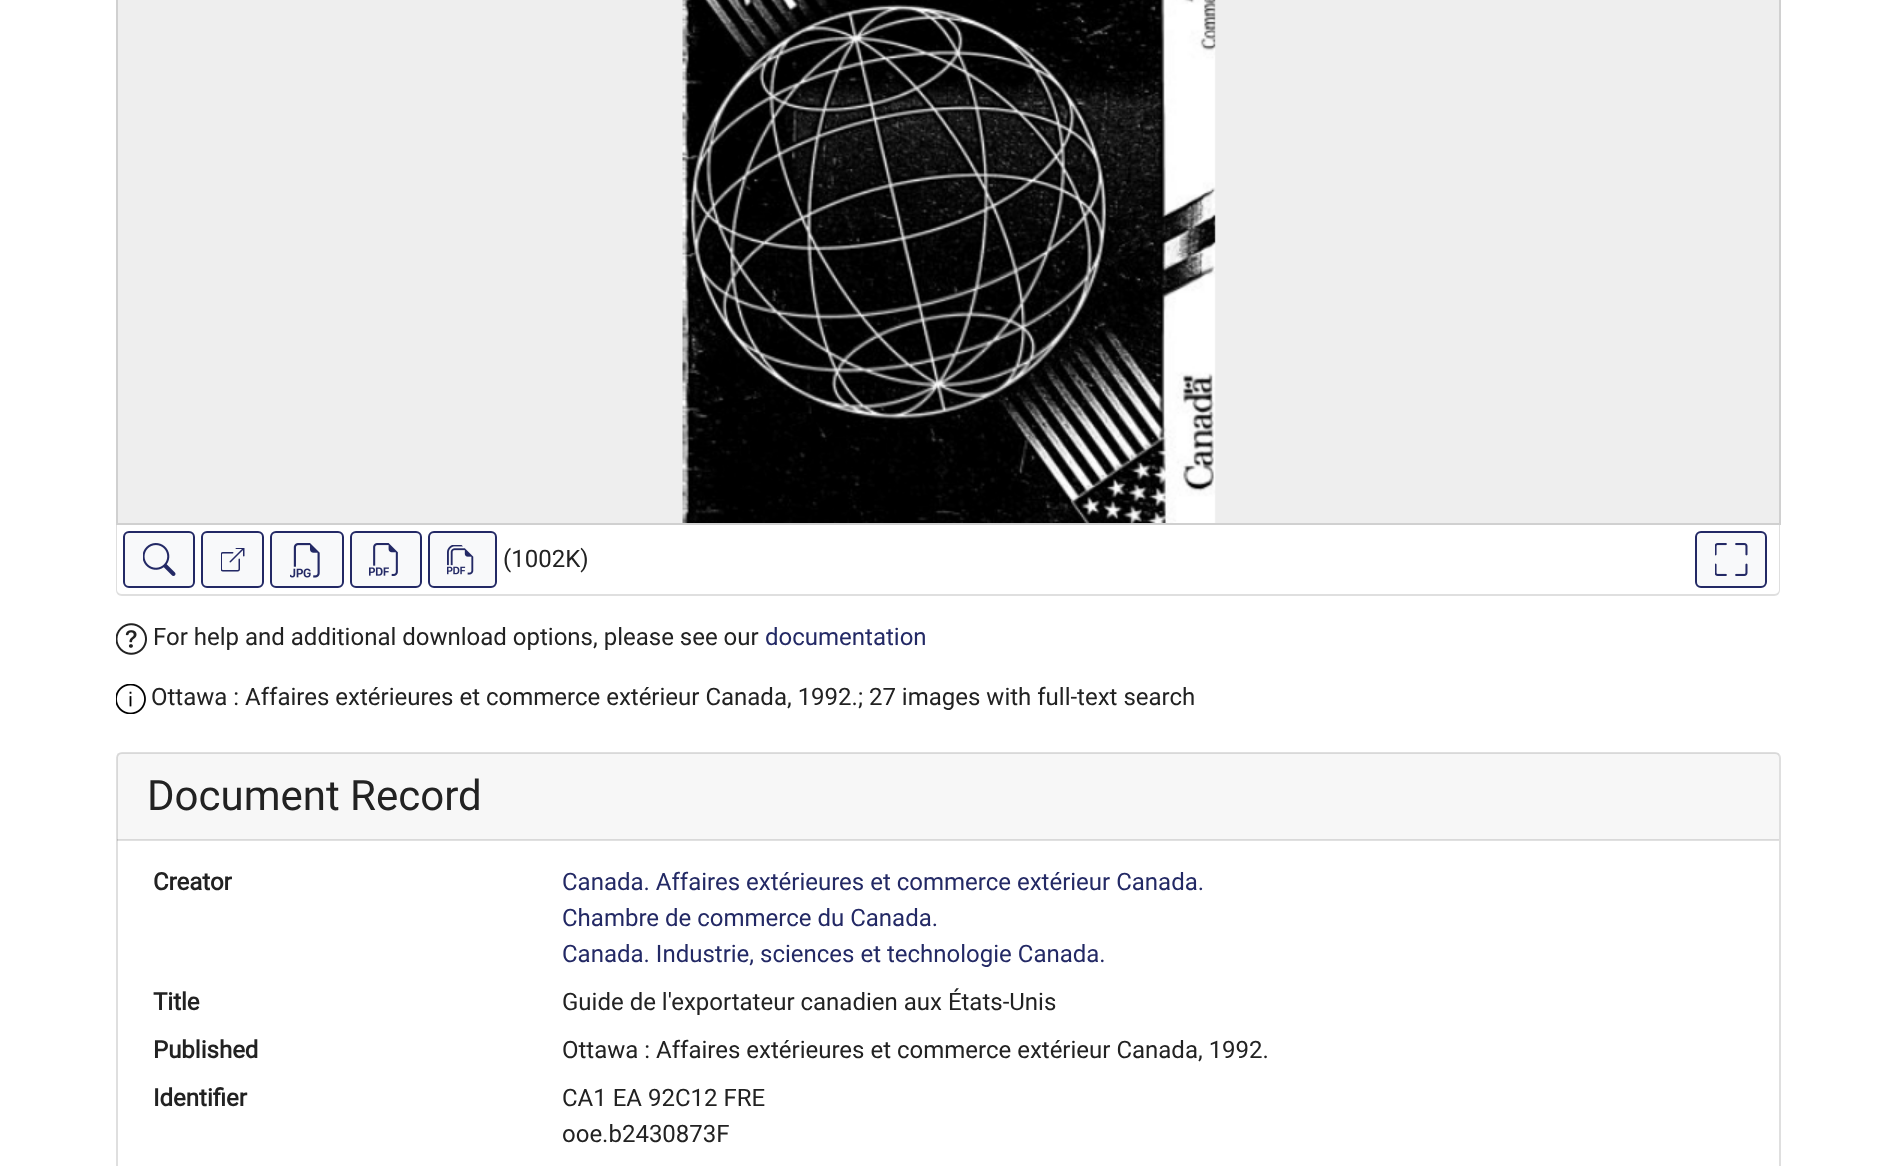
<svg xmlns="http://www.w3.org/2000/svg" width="1896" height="1166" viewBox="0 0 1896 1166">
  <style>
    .t1 { font: 24px Roboto; fill: #222; }
    .t2 { font: 24px Roboto; fill: #232965; }
    .t3 { font: 42px Roboto; fill: #222; }
    .t4 { font: bold 24px Roboto; fill: #222; }
  </style>
  <rect width="100%" height="100%" fill="#fff"/>
  <rect x="117" y="-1" width="1663" height="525" fill="#eee" stroke="#d0d0d0" stroke-width="2"/>
  <image x="682" y="0" width="534" height="523" href="images/1.png"/>
  <path d="M116 525H1780V590C1780 593 1778 596 1774 596H122C118 596 116 593 116 590ZM117 525H1779V590C1779 592 1777 594 1774 594H122C119 594 117 592 117 590Z" fill="#dfdfdf" fill-rule="evenodd"/>
  <rect x="124" y="532" width="70" height="55" rx="5" fill="#f8f9fa" stroke="#232965" stroke-width="2"/>
  <image x="143" y="543" width="33" height="33" href="images/2.png"/>
  <rect x="202" y="532" width="61" height="55" rx="5" fill="#f8f9fa" stroke="#232965" stroke-width="2"/>
  <image x="221" y="548" width="24" height="24" href="images/3.png"/>
  <rect x="271" y="532" width="72" height="55" rx="5" fill="#f8f9fa" stroke="#232965" stroke-width="2"/>
  <image x="290" y="543" width="30" height="35" href="images/4.png"/>
  <rect x="351" y="532" width="70" height="55" rx="5" fill="#f8f9fa" stroke="#232965" stroke-width="2"/>
  <image x="369" y="543" width="29" height="33" href="images/5.png"/>
  <rect x="429" y="532" width="67" height="55" rx="5" fill="#f8f9fa" stroke="#232965" stroke-width="2"/>
  <image x="447" y="545" width="27" height="30" href="images/6.png"/>
  <text x="503" y="567" class="t1">(1002K)</text>
  <rect x="1696" y="532" width="70" height="55" rx="5" fill="#f8f9fa" stroke="#232965" stroke-width="2"/>
  <image x="1715" y="543" width="33" height="33" href="images/7.png"/>
  <image x="116" y="623" width="31" height="32" href="images/8.png"/>
  <text x="153" y="645" class="t1">For help and additional download options, please see our</text>
  <text x="765" y="645" class="t2">documentation</text>
  <image x="116" y="684" width="30" height="30" href="images/9.png"/>
  <text x="151" y="705" class="t1">Ottawa : Affaires extérieures et commerce extérieur Canada, 1992.; 27 images with full-text search</text>
  <rect x="117" y="753" width="1663" height="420" rx="5" fill="none" stroke="#dfdfdf" stroke-width="2"/>
  <rect x="117" y="753" width="1662" height="87" fill="#00000008"/>
  <rect x="117" y="839" width="1662" height="2" fill="#0000001f"/>
  <text x="147" y="810" class="t3">Document Record</text>
  <text x="153" y="890" class="t4">Creator</text>
  <text x="562" y="890" class="t2">Canada. Affaires extérieures et commerce extérieur Canada.</text>
  <text x="562" y="926" class="t2">Chambre de commerce du Canada.</text>
  <text x="562" y="962" class="t2">Canada. Industrie, sciences et technologie Canada.</text>
  <text x="153" y="1010" class="t4">Title</text>
  <text x="562" y="1010" class="t1">Guide de l'exportateur canadien aux États-Unis</text>
  <text x="153" y="1058" class="t4">Published</text>
  <text x="562" y="1058" class="t1">Ottawa : Affaires extérieures et commerce extérieur Canada, 1992.</text>
  <text x="153" y="1106" class="t4">Identifier</text>
  <text x="562" y="1106" class="t1">CA1 EA 92C12 FRE</text>
  <text x="562" y="1142" class="t1">ooe.b2430873F</text>
</svg>
